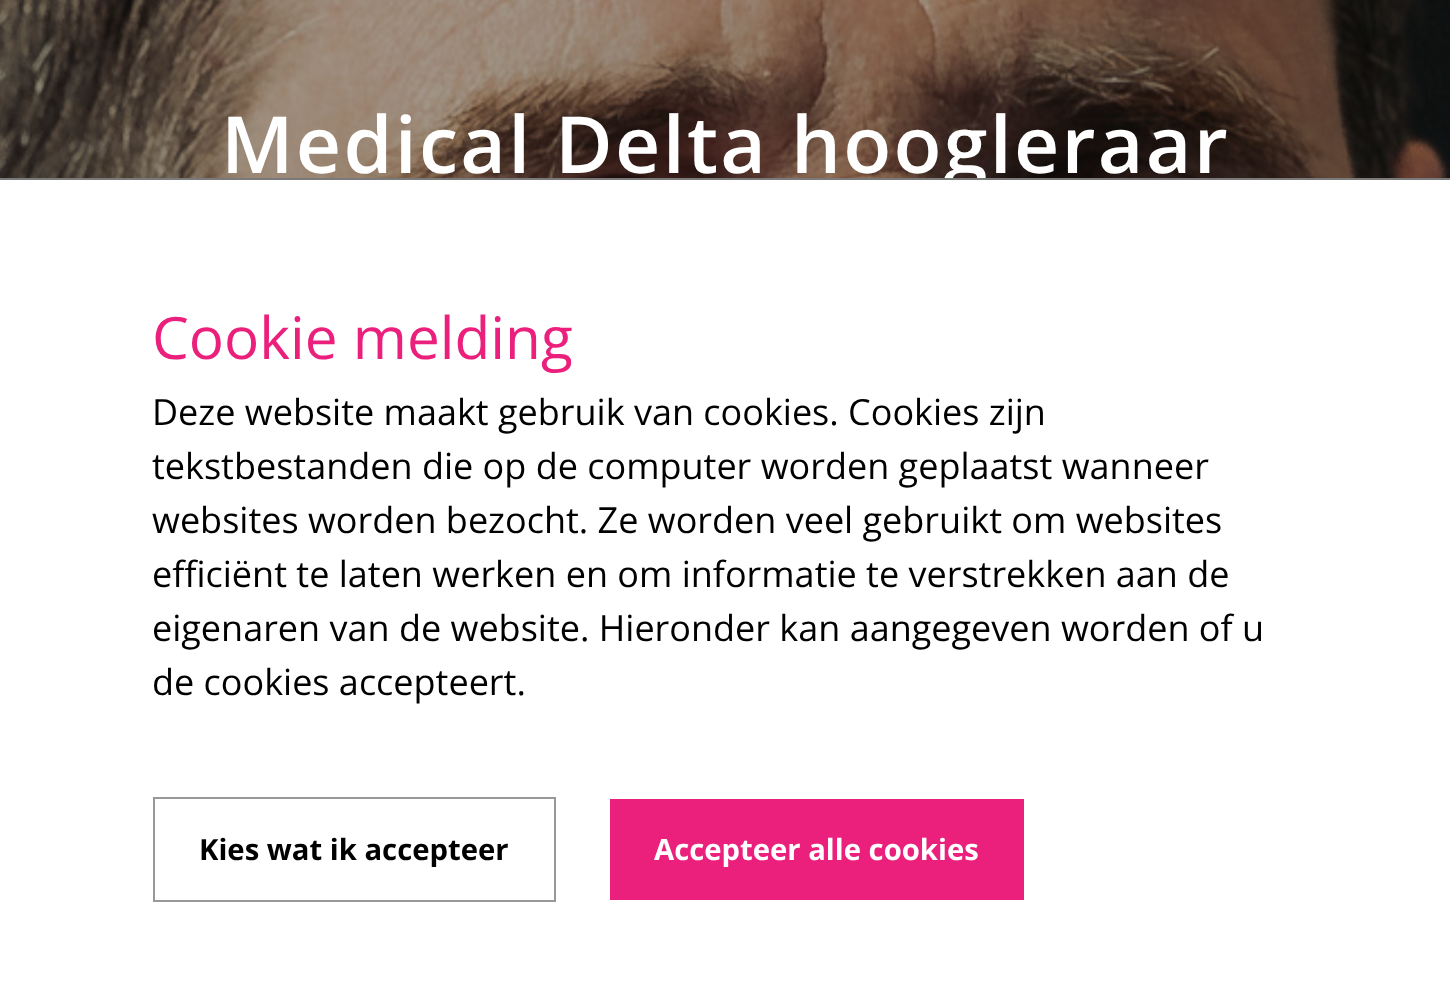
<svg xmlns="http://www.w3.org/2000/svg" width="1450" height="1003" viewBox="0 0 1450 1003">
  <style>
    .t1 { font: 600 78.75px Open Sans; letter-spacing: 2.25px; fill: #fff; }
    .t2 { font: 58.5px Open Sans; fill: #eb207c; }
    .t3 { font: 36px Open Sans; fill: #000; }
    .t4 { font: bold 29.25px Open Sans; fill: #000; }
    .t5 { font: bold 29.25px Open Sans; fill: #fff; }
  </style>
  <rect width="100%" height="100%" fill="#fff"/>
  <image x="0" y="0" width="1450" height="178" href="images/1.png"/>
  <text x="221" y="173" class="t1">Medical Delta hoogleraar</text>
  <rect x="0" y="178" width="1450" height="2" fill="#7a7a7a"/>
  <text x="152" y="359" class="t2">Cookie melding</text>
  <text x="152" y="425" class="t3">Deze website maakt gebruik van cookies. Cookies zijn</text>
  <text x="152" y="479" class="t3">tekstbestanden die op de computer worden geplaatst wanneer</text>
  <text x="152" y="533" class="t3">websites worden bezocht. Ze worden veel gebruikt om websites</text>
  <text x="152" y="587" class="t3">efficiënt te laten werken en om informatie te verstrekken aan de</text>
  <text x="152" y="641" class="t3">eigenaren van de website. Hieronder kan aangegeven worden of u</text>
  <text x="152" y="695" class="t3">de cookies accepteert.</text>
  <rect x="154" y="798" width="401" height="103" fill="none" stroke="#989898" stroke-width="2"/>
  <text x="199" y="860" class="t4">Kies wat ik accepteer</text>
  <rect x="610" y="799" width="414" height="101" fill="#eb207c"/>
  <text x="654" y="860" class="t5">Accepteer alle cookies</text>
</svg>
